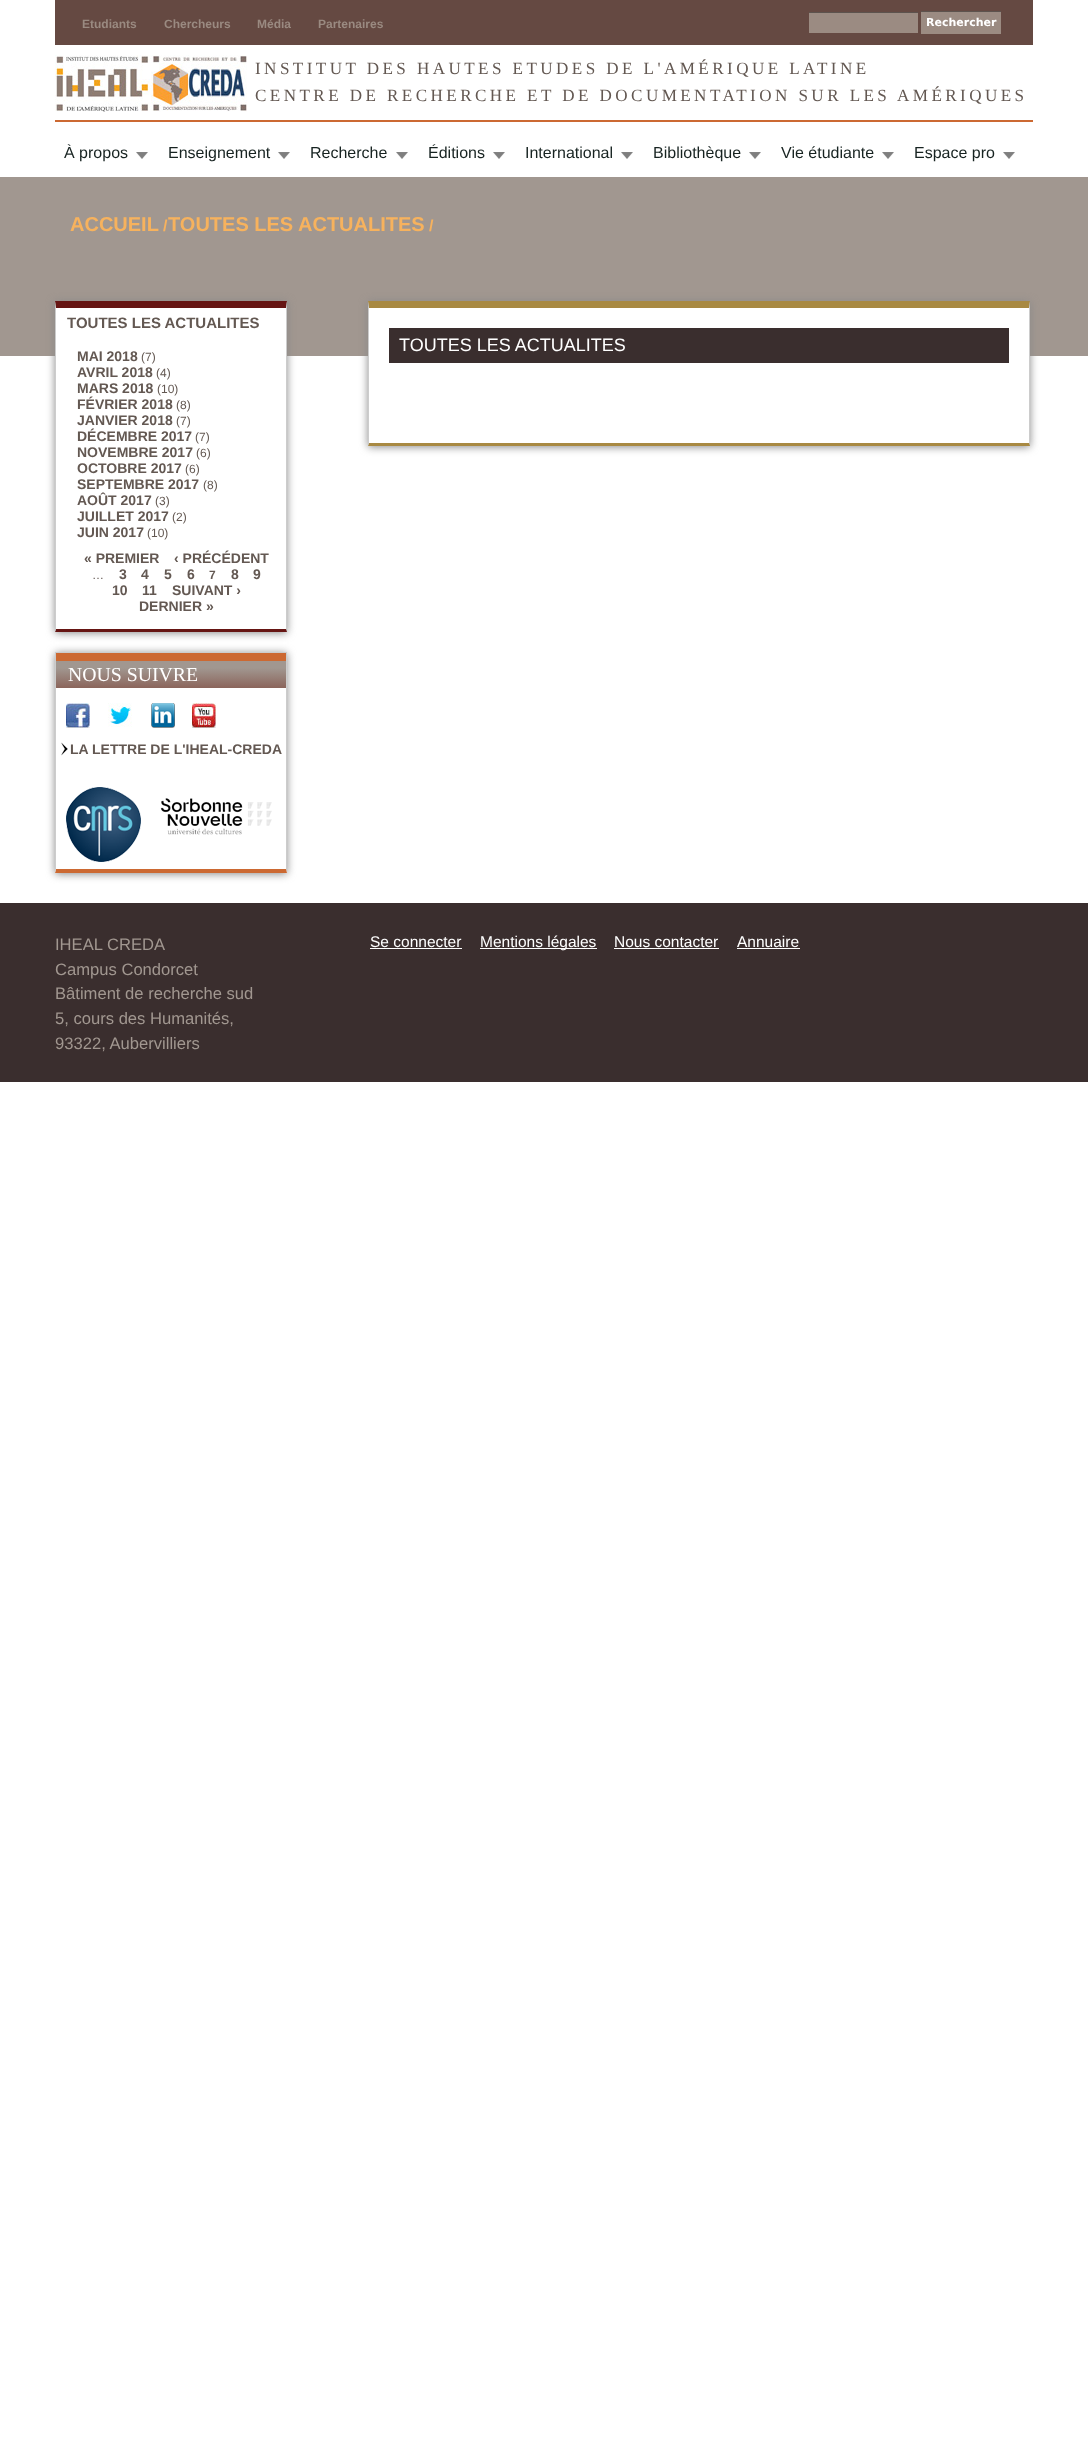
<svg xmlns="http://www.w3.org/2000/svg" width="1088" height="2458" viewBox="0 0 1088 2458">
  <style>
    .t1 { font: bold 12px Liberation Sans; fill: #9a8a81; }
    .t2 { font: bold 11px DejaVu Sans; fill: #fff; }
    .t3 { font: 17.1px Liberation Serif; letter-spacing: 3.42px; fill: #635852; }
    .t4 { font: 16px Liberation Sans; fill: #172321; }
    .t5 { font: bold 20px Liberation Sans; fill: #f7b25d; }
    .t6 { font: bold 16px Liberation Sans; fill: #f7b25d; }
    .t7 { font: bold 15px Liberation Sans; fill: #635852; }
    .t8 { font: bold 14px Liberation Sans; fill: #635852; }
    .t9 { font: 12px Liberation Sans; fill: #635852; }
    .t10 { font: bold 12px Liberation Sans; fill: #635852; }
    .t11 { font: 19.75px Liberation Serif; fill: #fff; }
    .t12 { font: 18px Liberation Sans; fill: #fff; }
    .t13 { font: 16.6px Liberation Sans; fill: #a19790; }
    .t14 { font: 15.5px Liberation Sans; fill: #fff; }
  </style>
  <defs>
    <clipPath id="clip1"><path d="M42 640H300V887H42ZM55 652H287V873H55Z" clip-rule="evenodd"/></clipPath>
    <linearGradient id="g1" gradientUnits="userSpaceOnUse" x1="56" y1="688" x2="56" y2="661"><stop offset="0" stop-color="#8b655b"/><stop offset="0.74" stop-color="#a19790"/></linearGradient>
  </defs>
  <rect width="100%" height="100%" fill="#fff"/>
  <rect x="55" y="0" width="978" height="45" fill="#654942"/>
  <text x="82" y="28" class="t1">Etudiants</text>
  <text x="164" y="28" class="t1">Chercheurs</text>
  <text x="257" y="28" class="t1">Média</text>
  <text x="318" y="28" class="t1">Partenaires</text>
  <rect x="809" y="13" width="109" height="20" fill="#9b8b82"/>
  <rect x="809" y="12" width="109" height="1" fill="#5d534e"/>
  <rect x="921" y="12" width="80" height="22" fill="#9b8b82"/>
  <rect x="921" y="11" width="80" height="1" fill="#5d534e"/>
  <text x="926" y="26" class="t2">Rechercher</text>
  <image x="55" y="55" width="192" height="57" href="images/1.png"/>
  <rect x="55" y="120" width="978" height="2" fill="#cc6932"/>
  <text x="255" y="74" class="t3">INSTITUT DES HAUTES ETUDES DE L'AMÉRIQUE LATINE</text>
  <text x="255" y="101" class="t3">CENTRE DE RECHERCHE ET DE DOCUMENTATION SUR LES AMÉRIQUES</text>
  <image x="136" y="152" width="12" height="7" href="images/2.png"/>
  <text x="64" y="158" class="t4">À propos</text>
  <image x="278" y="152" width="12" height="7" href="images/2.png"/>
  <text x="168" y="158" class="t4">Enseignement</text>
  <image x="396" y="152" width="12" height="7" href="images/2.png"/>
  <text x="310" y="158" class="t4">Recherche</text>
  <image x="493" y="152" width="12" height="7" href="images/2.png"/>
  <text x="428" y="158" class="t4">Éditions</text>
  <image x="621" y="152" width="12" height="7" href="images/2.png"/>
  <text x="525" y="158" class="t4">International</text>
  <image x="749" y="152" width="12" height="7" href="images/2.png"/>
  <text x="653" y="158" class="t4">Bibliothèque</text>
  <image x="882" y="152" width="12" height="7" href="images/2.png"/>
  <text x="781" y="158" class="t4">Vie étudiante</text>
  <image x="1003" y="152" width="12" height="7" href="images/2.png"/>
  <text x="914" y="158" class="t4">Espace pro</text>
  <rect x="0" y="177" width="1088" height="179" fill="#a19790"/>
  <text x="70" y="231" class="t5">ACCUEIL</text>
  <text x="163" y="231" class="t6">/</text>
  <text x="168" y="231" class="t5">TOUTES LES ACTUALITES</text>
  <text x="429" y="231" class="t6">/</text>
  <rect x="55" y="302" width="232" height="331" fill="#888" filter="blur(4px)"/>
  <rect x="56" y="308" width="230" height="321" fill="#fff"/>
  <path d="M55 301H287L286 308H56Z" fill="#661513"/>
  <path d="M287 301V632L286 629V308Z" fill="#ccc"/>
  <path d="M287 632H55L56 629H286Z" fill="#661513"/>
  <path d="M55 632V301L56 308V629Z" fill="#ccc"/>
  <text x="67" y="328" class="t7">TOUTES LES ACTUALITES</text>
  <text x="77" y="361" class="t8">MAI 2018</text>
  <text x="141" y="361" class="t9">(7)</text>
  <text x="77" y="377" class="t8">AVRIL 2018</text>
  <text x="156" y="377" class="t9">(4)</text>
  <text x="77" y="393" class="t8">MARS 2018</text>
  <text x="157" y="393" class="t9">(10)</text>
  <text x="77" y="409" class="t8">FÉVRIER 2018</text>
  <text x="176" y="409" class="t9">(8)</text>
  <text x="77" y="425" class="t8">JANVIER 2018</text>
  <text x="176" y="425" class="t9">(7)</text>
  <text x="77" y="441" class="t8">DÉCEMBRE 2017</text>
  <text x="195" y="441" class="t9">(7)</text>
  <text x="77" y="457" class="t8">NOVEMBRE 2017</text>
  <text x="196" y="457" class="t9">(6)</text>
  <text x="77" y="473" class="t8">OCTOBRE 2017</text>
  <text x="185" y="473" class="t9">(6)</text>
  <text x="77" y="489" class="t8">SEPTEMBRE 2017</text>
  <text x="203" y="489" class="t9">(8)</text>
  <text x="77" y="505" class="t8">AOÛT 2017</text>
  <text x="155" y="505" class="t9">(3)</text>
  <text x="77" y="521" class="t8">JUILLET 2017</text>
  <text x="172" y="521" class="t9">(2)</text>
  <text x="77" y="537" class="t8">JUIN 2017</text>
  <text x="147" y="537" class="t9">(10)</text>
  <text x="84" y="563" class="t8">« PREMIER</text>
  <text x="174" y="563" class="t8">‹ PRÉCÉDENT</text>
  <text x="92" y="579" class="t9">…</text>
  <text x="119" y="579" class="t8">3</text>
  <text x="141" y="579" class="t8">4</text>
  <text x="164" y="579" class="t8">5</text>
  <text x="187" y="579" class="t8">6</text>
  <text x="209" y="579" class="t10">7</text>
  <text x="231" y="579" class="t8">8</text>
  <text x="253" y="579" class="t8">9</text>
  <text x="112" y="595" class="t8">10</text>
  <text x="142" y="595" class="t8">11</text>
  <text x="172" y="595" class="t8">SUIVANT ›</text>
  <text x="139" y="611" class="t8">DERNIER »</text>
  <g clip-path="url(#clip1)">
    <rect x="55" y="653" width="232" height="221" fill="#888" filter="blur(4px)"/>
  </g>
  <rect x="55" y="652" width="232" height="1" fill="#ccc"/>
  <path d="M287 652V873L286 869V653Z" fill="#ccc"/>
  <path d="M287 873H55L56 869H286Z" fill="#cc6932"/>
  <path d="M55 873V652L56 653V869Z" fill="#ccc"/>
  <rect x="56" y="661" width="230" height="27" fill="url(#g1)"/>
  <rect x="56" y="653" width="230" height="8" fill="#cc6932"/>
  <text x="68" y="681" class="t11">NOUS SUIVRE</text>
  <image x="66" y="703" width="24" height="25" href="images/3.png"/>
  <image x="108" y="703" width="24" height="24" href="images/4.png"/>
  <image x="151" y="703" width="24" height="25" href="images/5.png"/>
  <image x="192" y="703" width="24" height="25" href="images/6.png"/>
  <image x="61" y="742" width="7" height="14" href="images/7.png"/>
  <text x="70" y="754" class="t8">LA LETTRE DE L'IHEAL-CREDA</text>
  <image x="66" y="787" width="75" height="75" href="images/8.png"/>
  <image x="160" y="798" width="112" height="37" href="images/9.png"/>
  <rect x="368" y="302" width="662" height="145" fill="#888" filter="blur(4px)"/>
  <rect x="369" y="308" width="660" height="135" fill="#fff"/>
  <path d="M368 301H1030L1029 308H369Z" fill="#a88942"/>
  <path d="M1030 301V446L1029 443V308Z" fill="#ccc"/>
  <path d="M1030 446H368L369 443H1029Z" fill="#a88942"/>
  <path d="M368 446V301L369 308V443Z" fill="#ccc"/>
  <rect x="389" y="328" width="620" height="35" fill="#3a2e2e"/>
  <text x="399" y="351" class="t12">TOUTES LES ACTUALITES</text>
  <rect x="0" y="903" width="1088" height="179" fill="#3a2e2e"/>
  <text x="55" y="950" class="t13">IHEAL CREDA</text>
  <text x="55" y="975" class="t13">Campus Condorcet</text>
  <text x="55" y="999" class="t13">Bâtiment de recherche sud</text>
  <text x="55" y="1024" class="t13">5, cours des Humanités,</text>
  <text x="55" y="1049" class="t13">93322, Aubervilliers</text>
  <text x="370" y="947" class="t14">Se connecter</text>
  <rect x="370" y="948" width="92" height="1" fill="#fff"/>
  <rect x="480" y="948" width="117" height="1" fill="#fff"/>
  <text x="480" y="947" class="t14">Mentions légales</text>
  <text x="614" y="947" class="t14">Nous contacter</text>
  <rect x="614" y="948" width="105" height="1" fill="#fff"/>
  <text x="737" y="947" class="t14">Annuaire</text>
  <rect x="737" y="948" width="63" height="1" fill="#fff"/>
</svg>
